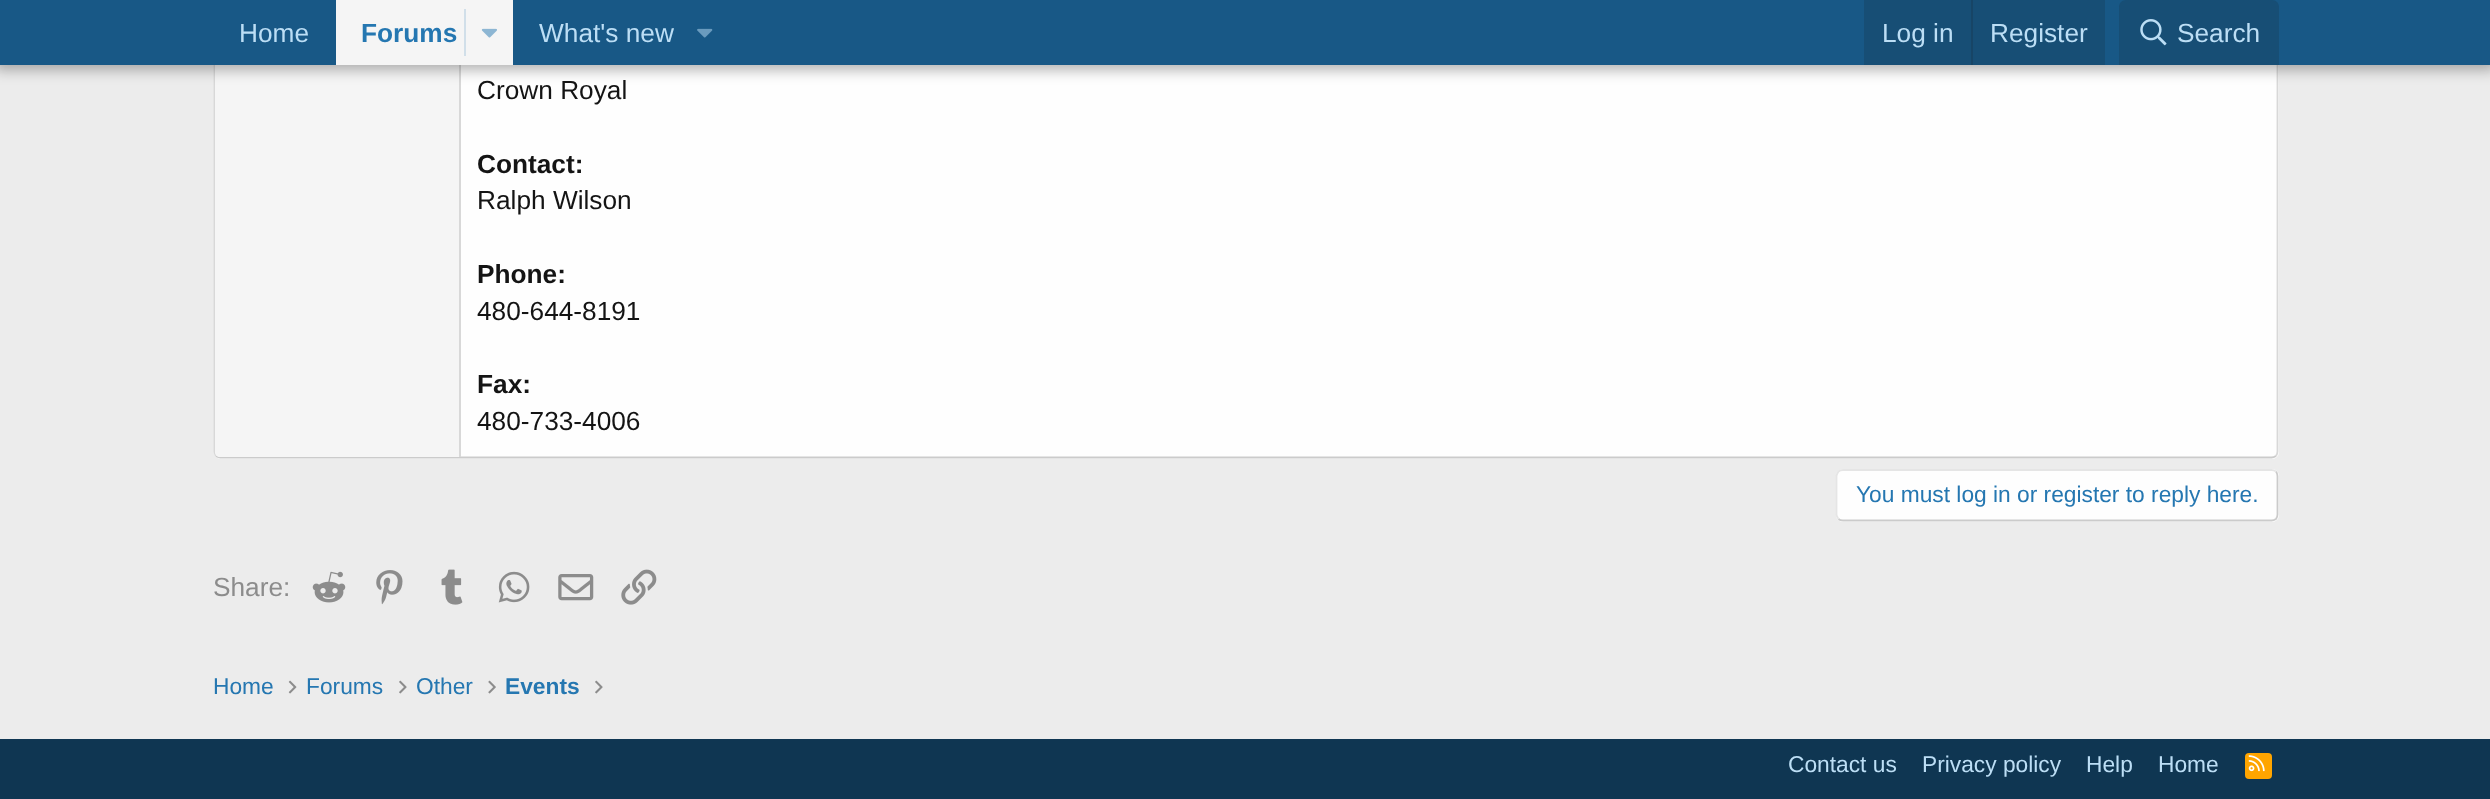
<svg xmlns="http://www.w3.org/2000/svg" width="2490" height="799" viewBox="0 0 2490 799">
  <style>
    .t1 { font: 26.25px Liberation Sans; fill: #bcdef5; }
    .t2 { font: bold 26.25px Liberation Sans; fill: #2577b1; }
    .t3 { font: 26.25px Liberation Sans; fill: #141414; }
    .t4 { font: bold 26.25px Liberation Sans; fill: #141414; }
    .t5 { font: 22.75px Liberation Sans; fill: #2577b1; }
    .t6 { font: 26.25px Liberation Sans; fill: #8c8c8c; }
    .t7 { font: bold 22.75px Liberation Sans; fill: #2577b1; }
    .t8 { font: 22.75px Liberation Sans; fill: #bcdef5; }
  </style>
  <defs>
    <clipPath id="clip1"><rect x="417" y="670" width="56" height="34"/></clipPath>
  </defs>
  <rect width="100%" height="100%" fill="#ececec"/>
  <rect x="214" y="-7" width="2065" height="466" rx="7" fill="#fefefe"/>
  <path d="M2276-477C2277-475.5 2277.5-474 2277.5-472.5V451.5C2277.5 453 2277 454.5 2276 456" fill="none" stroke="#d8d8d8" stroke-width="1.8"/>
  <path d="M2276 456C2274.5 457 2273 457.5 2271.5 457.5H220.5C219 457.5 217.5 457 216 456" fill="none" stroke="#cbcbcb" stroke-width="1.8"/>
  <path d="M216 456C215 454.5 214.5 453 214.5 451.5V-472.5C214.5-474 215-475.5 216-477" fill="none" stroke="#d8d8d8" stroke-width="1.8"/>
  <path d="M220-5H460V457H220C217 457 215 455 215 452V0C215-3 217-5 220-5Z" fill="#f5f5f5"/>
  <rect x="459" y="65" width="2" height="392" fill="#d8d8d8"/>
  <rect x="-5" y="-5" width="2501" height="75" fill="#0000004d" filter="blur(7px)"/>
  <rect x="0" y="0" width="2490" height="65" fill="#185886"/>
  <text x="239" y="42" class="t1">Home</text>
  <rect x="336" y="0" width="177" height="65" fill="#f5f5f5"/>
  <text x="361" y="42" class="t2">Forums</text>
  <rect x="464" y="9" width="2" height="47" fill="#d1dfe9"/>
  <image x="481" y="28" width="16" height="10" href="images/1.png"/>
  <text x="539" y="42" class="t1">What's new</text>
  <image x="697" y="28" width="16" height="10" href="images/2.png"/>
  <rect x="1864" y="0" width="241" height="65" fill="#174e75"/>
  <text x="1882" y="42" class="t1">Log in</text>
  <rect x="1971" y="0" width="2" height="65" fill="#174566"/>
  <text x="1990" y="42" class="t1">Register</text>
  <path d="M2126 0H2272C2276 0 2279 3 2279 7V65H2119V7C2119 3 2122 0 2126 0Z" fill="#174e75"/>
  <image x="2140" y="19" width="27" height="27" href="images/3.png"/>
  <text x="2177" y="42" class="t1">Search</text>
  <text x="477" y="99" class="t3">Crown Royal</text>
  <text x="477" y="173" class="t4">Contact:</text>
  <text x="477" y="209" class="t3">Ralph Wilson</text>
  <text x="477" y="283" class="t4">Phone:</text>
  <text x="477" y="320" class="t3">480-644-8191</text>
  <text x="477" y="393" class="t4">Fax:</text>
  <text x="477" y="430" class="t3">480-733-4006</text>
  <rect x="1836" y="469" width="443" height="53" rx="7" fill="#fefefe"/>
  <path d="M2276 471.5C2277 473 2277.5 474.5 2277.5 476V514.5C2277.5 516 2277 517.5 2276 519C2274.5 520 2273 520.5 2271.5 520.5H1843C1841 520.5 1839.5 520 1838.5 519" fill="none" stroke="#cbcbcb" stroke-width="1.8"/>
  <path d="M1838.5 519C1837.5 517.5 1836.5 516 1836.5 514.5V476C1836.5 474.5 1837.5 473 1838.5 471.5C1839.5 470.5 1841 470 1843 470H2271.5C2273 470 2274.5 470.5 2276 471.5" fill="none" stroke="#e5e5e5" stroke-width="1.8"/>
  <text x="1856" y="502" class="t5">You must log in or register to reply here.</text>
  <text x="213" y="596" class="t6">Share:</text>
  <image x="312" y="571" width="34" height="32" href="images/4.png"/>
  <image x="376" y="570" width="27" height="35" href="images/5.png"/>
  <image x="441" y="569" width="22" height="36" href="images/6.png"/>
  <image x="498" y="571" width="32" height="32" href="images/7.png"/>
  <image x="558" y="574" width="36" height="27" href="images/8.png"/>
  <image x="621" y="569" width="36" height="36" href="images/9.png"/>
  <text x="213" y="694" class="t5">Home</text>
  <image x="288" y="680" width="9" height="14" href="images/10.png"/>
  <text x="306" y="694" class="t5">Forums</text>
  <image x="399" y="680" width="8" height="14" href="images/11.png"/>
  <g clip-path="url(#clip1)">
    <text x="416" y="694" class="t5">Other</text>
  </g>
  <image x="488" y="680" width="8" height="14" href="images/12.png"/>
  <text x="505" y="694" class="t7">Events</text>
  <image x="595" y="680" width="8" height="14" href="images/11.png"/>
  <rect x="0" y="739" width="2490" height="60" fill="#0f3652"/>
  <text x="1788" y="772" class="t8">Contact us</text>
  <text x="1922" y="772" class="t8">Privacy policy</text>
  <text x="2086" y="772" class="t8">Help</text>
  <text x="2158" y="772" class="t8">Home</text>
  <rect x="2245" y="753" width="27" height="26" rx="4" fill="#ffa500"/>
  <image x="2248" y="755" width="17" height="17" href="images/13.png"/>
</svg>
